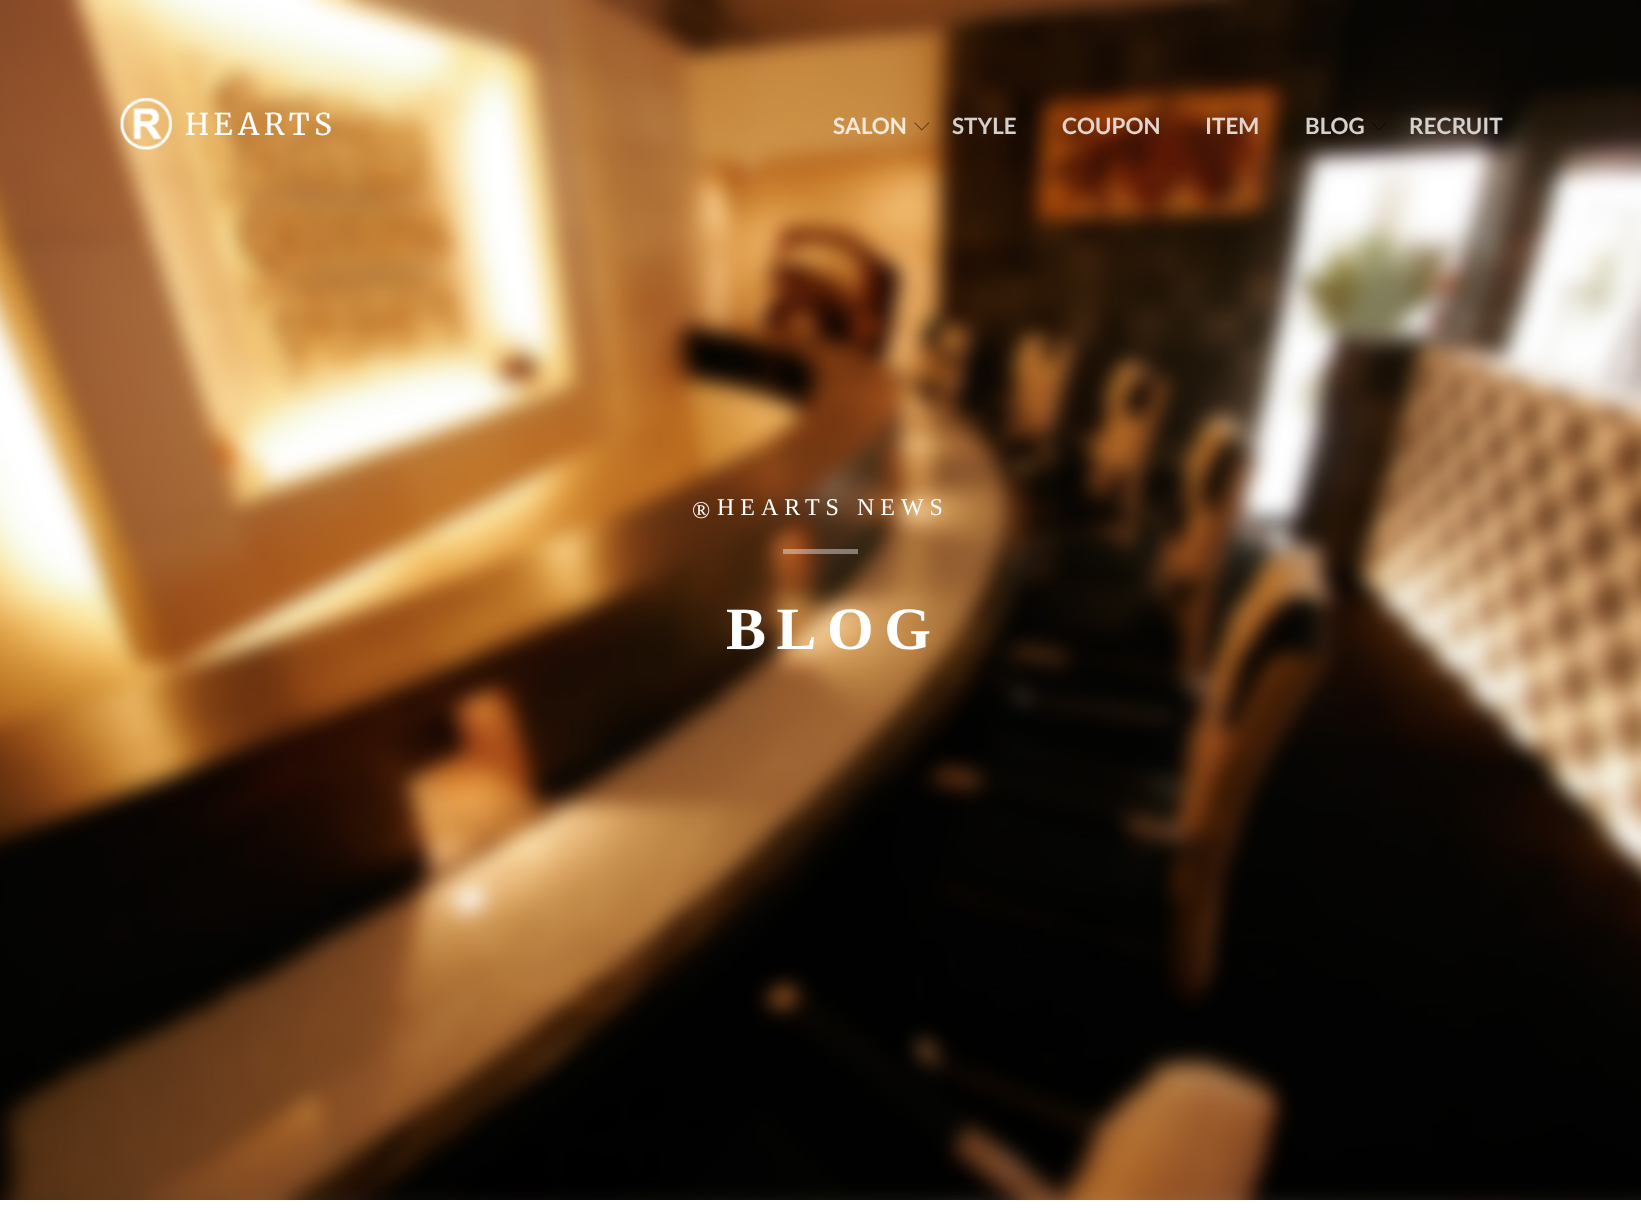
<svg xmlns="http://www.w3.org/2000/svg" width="1641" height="1214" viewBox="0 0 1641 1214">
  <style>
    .t1 { font: 30px Merriweather; letter-spacing: 4.5px; fill: #fff; }
    .t2 { font: bold 22.5px Lato; fill: #f4e8da; }
    .t3 { font: bold 22.5px Lato; fill: #d4d0cd; }
    .t4 { font: bold 22.5px Lato; fill: #e3d5cd; }
    .t5 { font: 24px Liberation Serif; letter-spacing: 6px; fill: #fff; }
    .t6 { font: bold 60px Liberation Serif; letter-spacing: 10.5px; fill: #fff; }
  </style>
  <rect width="100%" height="100%" fill="#fff"/>
  <image x="0" y="0" width="1641" height="1200" href="images/4.png"/>
  <image x="120" y="98" width="53" height="52" href="images/1.png"/>
  <text x="185" y="135" class="t1">HEARTS</text>
  <text x="833" y="134" class="t2">SALON</text>
  <image x="914" y="122" width="16" height="9" href="images/2.png"/>
  <text x="952" y="134" class="t3">STYLE</text>
  <text x="1062" y="134" class="t4">COUPON</text>
  <text x="1205" y="134" class="t4">ITEM</text>
  <text x="1305" y="134" class="t3">BLOG</text>
  <image x="1372" y="122" width="15" height="9" href="images/3.png"/>
  <text x="1409" y="134" class="t3">RECRUIT</text>
  <text x="692" y="518" class="t5">®</text>
  <text x="717" y="515" class="t5">HEARTS NEWS</text>
  <rect x="783" y="549" width="75" height="5" fill="#ffffff66"/>
  <text x="726" y="649" class="t6">BLOG</text>
</svg>
